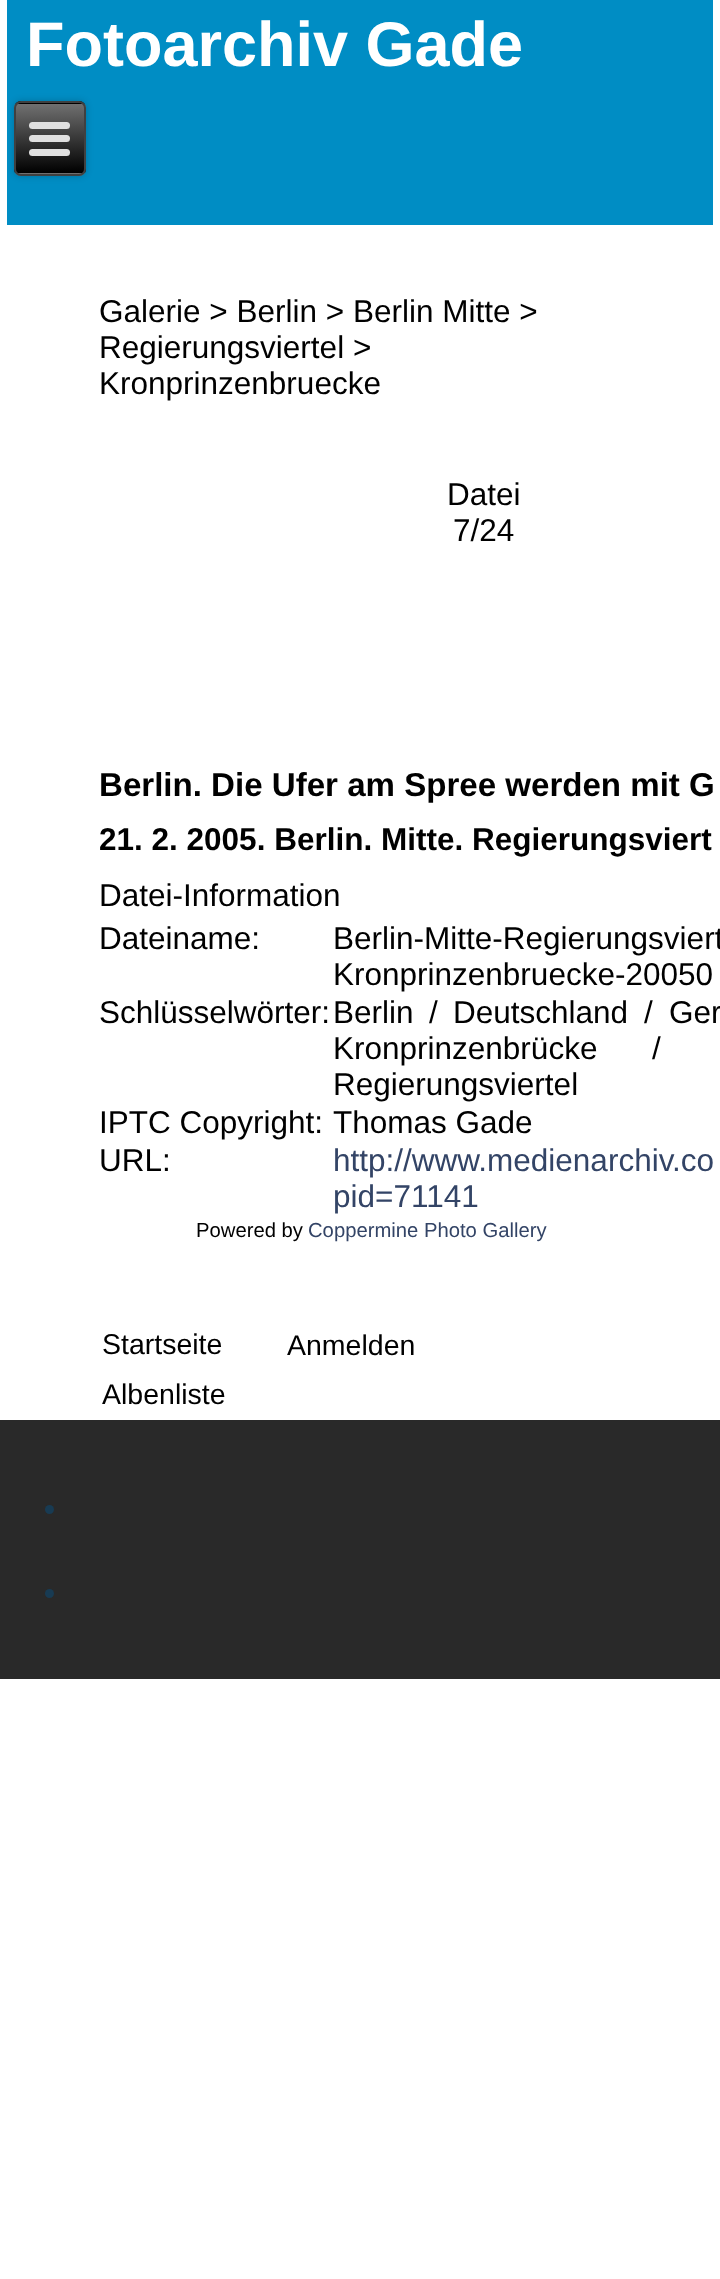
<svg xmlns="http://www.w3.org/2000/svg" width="720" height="2279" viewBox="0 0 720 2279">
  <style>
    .t1 { font: bold 63px Liberation Sans; fill: #fff; }
    .t2 { font: 31.5px Liberation Sans; fill: #000; }
    .t3 { font: bold 33.1px Liberation Sans; fill: #000; }
    .t4 { font: bold 31.5px Liberation Sans; fill: #000; }
    .t5 { font: 31.5px Liberation Sans; fill: #346; }
    .t6 { font: 20.25px Liberation Sans; fill: #000; }
    .t7 { font: 20.25px Liberation Sans; fill: #346; }
    .t8 { font: 28.5px Liberation Sans; fill: #000; }
  </style>
  <defs>
    <clipPath id="clip1"><rect x="14" y="101" width="72" height="75" rx="7"/></clipPath>
    <linearGradient id="g1" gradientUnits="userSpaceOnUse" x1="49" y1="34" x2="50" y2="104"><stop offset="0" stop-color="#707070"/><stop offset="1" stop-color="#000"/></linearGradient>
    <linearGradient id="g2" gradientUnits="userSpaceOnUse" x1="49" y1="104" x2="50" y2="173"><stop offset="0" stop-color="#707070"/><stop offset="1" stop-color="#000"/></linearGradient>
    <linearGradient id="g3" gradientUnits="userSpaceOnUse" x1="49" y1="173" x2="50" y2="243"><stop offset="0" stop-color="#707070"/><stop offset="1" stop-color="#000"/></linearGradient>
  </defs>
  <rect width="100%" height="100%" fill="#fff"/>
  <rect x="7" y="0" width="706" height="225" fill="#008dc4"/>
  <text x="26" y="66" class="t1">Fotoarchiv Gade</text>
  <rect x="14" y="101" width="72" height="75" rx="7" fill="#00000033" filter="blur(3.5px)"/>
  <g clip-path="url(#clip1)">
    <rect x="14" y="101" width="72" height="3" fill="url(#g1)"/>
    <rect x="14" y="104" width="72" height="69" fill="url(#g2)"/>
    <rect x="14" y="173" width="72" height="3" fill="url(#g3)"/>
  </g>
  <rect x="15" y="102" width="70" height="73" rx="6" fill="none" stroke="#404040" stroke-width="2"/>
  <rect x="29" y="122" width="41" height="7" rx="3.5" fill="#e0e0e0"/>
  <rect x="29" y="135" width="41" height="7" rx="3.5" fill="#e0e0e0"/>
  <rect x="29" y="149" width="41" height="7" rx="3.5" fill="#e0e0e0"/>
  <text x="99" y="322" class="t2">Galerie &gt; Berlin &gt; Berlin Mitte &gt;</text>
  <text x="99" y="358" class="t2">Regierungsviertel &gt;</text>
  <text x="99" y="394" class="t2">Kronprinzenbruecke</text>
  <text x="447" y="505" class="t2">Datei</text>
  <text x="453" y="541" class="t2">7/24</text>
  <text x="99" y="796" class="t3">Berlin. Die Ufer am Spree werden mit G</text>
  <text x="99" y="850" class="t4">21. 2. 2005. Berlin. Mitte. Regierungsviert</text>
  <text x="99" y="906" class="t2">Datei-Information</text>
  <text x="99" y="949" class="t2">Dateiname:</text>
  <text x="333" y="949" class="t2">Berlin-Mitte-Regierungsviert</text>
  <text x="333" y="985" class="t2">Kronprinzenbruecke-20050</text>
  <text x="99" y="1023" class="t2">Schlüsselwörter:</text>
  <text x="333" y="1023" class="t2">Berlin</text>
  <text x="429" y="1023" class="t2">/</text>
  <text x="453" y="1023" class="t2">Deutschland</text>
  <text x="644" y="1023" class="t2">/</text>
  <text x="669" y="1023" class="t2">Ger</text>
  <text x="333" y="1059" class="t2">Kronprinzenbrücke</text>
  <text x="652" y="1059" class="t2">/</text>
  <text x="333" y="1095" class="t2">Regierungsviertel</text>
  <text x="99" y="1133" class="t2">IPTC Copyright:</text>
  <text x="333" y="1133" class="t2">Thomas Gade</text>
  <text x="99" y="1171" class="t2">URL:</text>
  <text x="333" y="1171" class="t5">http://www.medienarchiv.co</text>
  <text x="333" y="1207" class="t5">pid=71141</text>
  <text x="196" y="1237" class="t6">Powered by</text>
  <text x="308" y="1237" class="t7">Coppermine Photo Gallery</text>
  <text x="102" y="1354" class="t8">Startseite</text>
  <text x="287" y="1355" class="t8">Anmelden</text>
  <text x="102" y="1404" class="t8">Albenliste</text>
  <rect x="0" y="1420" width="720" height="259" fill="#292929"/>
  <circle cx="49.5" cy="1509.5" r="4.5" fill="#183b53"/>
  <circle cx="49.5" cy="1593.5" r="4.5" fill="#183b53"/>
</svg>
